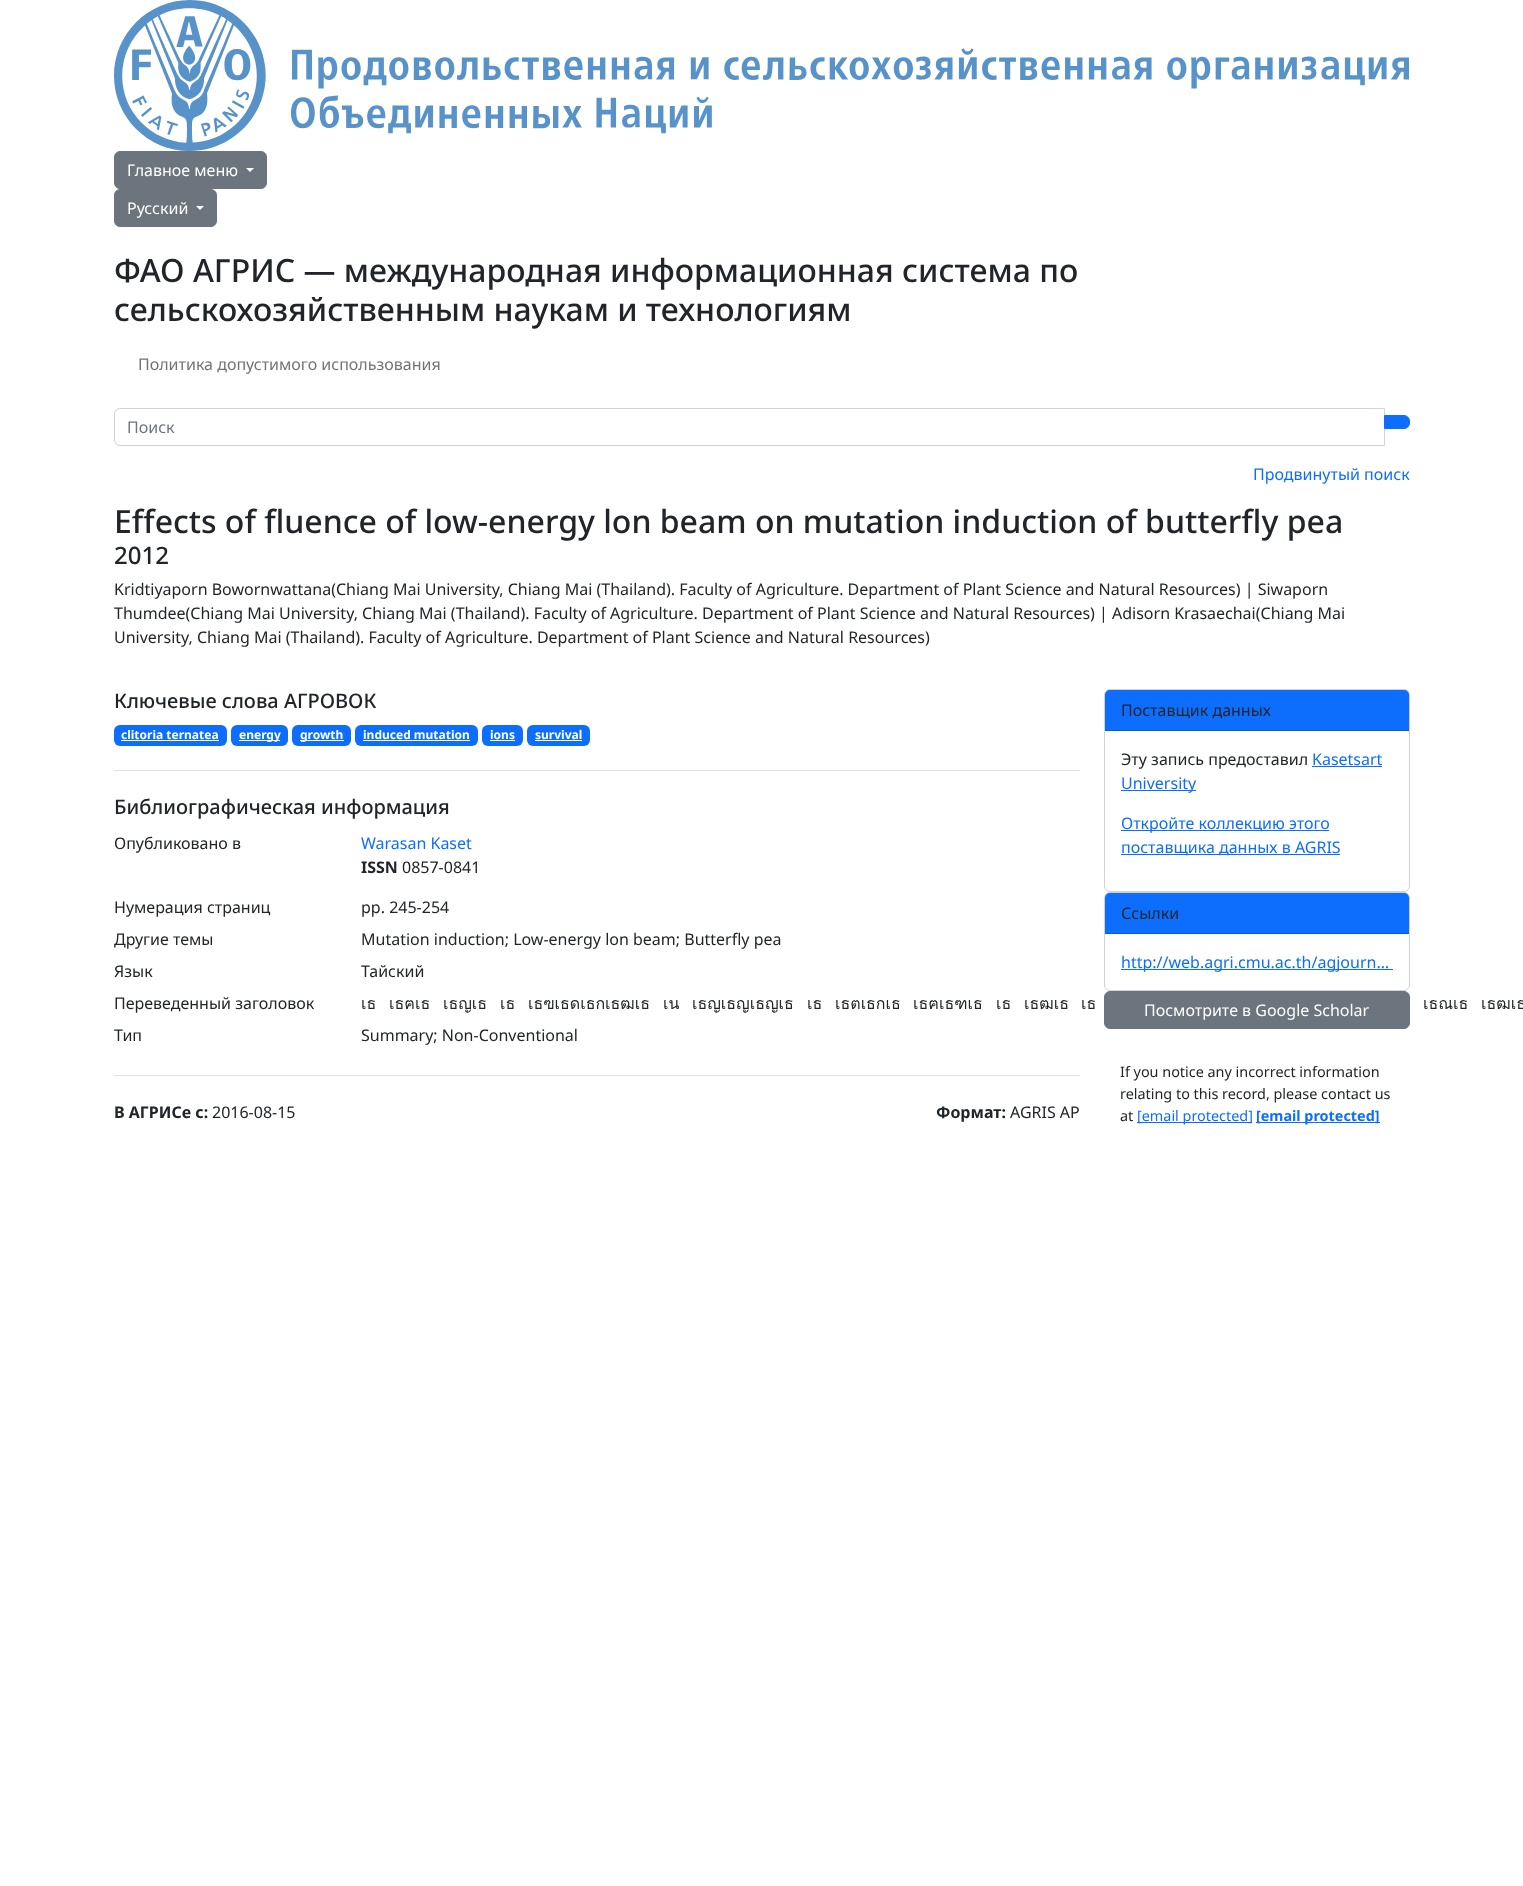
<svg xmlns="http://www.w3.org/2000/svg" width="1523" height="1886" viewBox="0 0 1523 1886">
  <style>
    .t1 { font: 16px Noto Sans; fill: #fff; }
    .t2 { font: 500 32px Noto Sans; fill: #212529; }
    .t3 { font: 16px Noto Sans; fill: #737373; }
    .t4 { font: 16px Noto Sans; fill: #6c757d; }
    .t5 { font: 16px Noto Sans; fill: #0d6efd; }
    .t6 { font: 500 24px Noto Sans; fill: #212529; }
    .t7 { font: 16px Noto Sans; fill: #212529; }
    .t8 { font: 500 20px Noto Sans; fill: #212529; }
    .t9 { font: bold 12px Noto Sans; fill: #fff; }
    .t10 { font: bold 16px Noto Sans; fill: #212529; }
    .t11 { font: 16px Loma; fill: #212529; }
    .t12 { font: 14.4px Noto Sans; fill: #212529; }
    .t13 { font: 14.4px Noto Sans; fill: #0d6efd; }
    .t14 { font: bold 14.4px Noto Sans; fill: #0d6efd; }
  </style>
  <rect width="100%" height="100%" fill="#fff"/>
  <image x="114" y="0" width="1295" height="151" href="images/1.png"/>
  <rect x="114.5" y="151.5" width="152" height="37" rx="5.5" fill="#6c757d" stroke="#6c757d"/>
  <text x="127" y="176" class="t1">Главное меню</text>
  <path d="M246 168H254L250 172Z" fill="#fff"/>
  <rect x="114.5" y="189.5" width="102" height="37" rx="5.5" fill="#6c757d" stroke="#6c757d"/>
  <text x="127" y="214" class="t1">Русский</text>
  <path d="M196 206H204L200 210Z" fill="#fff"/>
  <text x="114" y="282" class="t2">ФАО АГРИС — международная информационная система по</text>
  <text x="114" y="321" class="t2">сельскохозяйственным наукам и технологиям</text>
  <text x="138" y="370" class="t3">Политика допустимого использования</text>
  <path d="M120 408.5H1384.5V445.5H120C117 445.5 114.5 443 114.5 440V414C114.5 411 117 408.5 120 408.5Z" fill="none" stroke="#ced4da"/>
  <text x="127" y="433" class="t4">Поиск</text>
  <path d="M1384.5 415.5H1404C1407 415.5 1409.5 418 1409.5 421V423C1409.5 426 1407 428.5 1404 428.5H1384.5Z" fill="#0d6efd" stroke="#0d6efd"/>
  <text x="1253" y="480" class="t5">Продвинутый поиск</text>
  <text x="114" y="533" class="t2">Effects of fluence of low-energy lon beam on mutation induction of butterfly pea</text>
  <text x="114" y="564" class="t6">2012</text>
  <text x="114" y="595" class="t7">Kridtiyaporn Bowornwattana(Chiang Mai University, Chiang Mai (Thailand). Faculty of Agriculture. Department of Plant Science and Natural Resources) | Siwaporn</text>
  <text x="114" y="619" class="t7">Thumdee(Chiang Mai University, Chiang Mai (Thailand). Faculty of Agriculture. Department of Plant Science and Natural Resources) | Adisorn Krasaechai(Chiang Mai</text>
  <text x="114" y="643" class="t7">University, Chiang Mai (Thailand). Faculty of Agriculture. Department of Plant Science and Natural Resources)</text>
  <text x="114" y="708" class="t8">Ключевые слова АГРОВОК</text>
  <rect x="114" y="725" width="113" height="21" rx="6" fill="#0d6efd"/>
  <text x="121" y="739" class="t9">clitoria ternatea</text>
  <rect x="121" y="740" width="98" height="1" fill="#fff"/>
  <rect x="231" y="725" width="57" height="21" rx="6" fill="#0d6efd"/>
  <rect x="239" y="740" width="41" height="1" fill="#fff"/>
  <text x="239" y="739" class="t9">energy</text>
  <rect x="292" y="725" width="59" height="21" rx="6" fill="#0d6efd"/>
  <rect x="300" y="740" width="44" height="1" fill="#fff"/>
  <text x="300" y="739" class="t9">growth</text>
  <rect x="355" y="725" width="123" height="21" rx="6" fill="#0d6efd"/>
  <text x="363" y="739" class="t9">induced mutation</text>
  <rect x="363" y="740" width="107" height="1" fill="#fff"/>
  <rect x="482" y="725" width="41" height="21" rx="6" fill="#0d6efd"/>
  <text x="490" y="739" class="t9">ions</text>
  <rect x="490" y="740" width="25" height="1" fill="#fff"/>
  <rect x="527" y="725" width="63" height="21" rx="6" fill="#0d6efd"/>
  <text x="535" y="739" class="t9">survival</text>
  <rect x="535" y="740" width="47" height="1" fill="#fff"/>
  <rect x="114" y="770" width="966" height="1" fill="#dfdfdf"/>
  <text x="114" y="814" class="t8">Библиографическая информация</text>
  <text x="114" y="849" class="t7">Опубликовано в</text>
  <text x="361" y="849" class="t5">Warasan Kaset</text>
  <text x="361" y="873" class="t10">ISSN</text>
  <text x="402" y="873" class="t7">0857-0841</text>
  <text x="114" y="913" class="t7">Нумерация страниц</text>
  <text x="361" y="913" class="t7">pp. 245-254</text>
  <text x="114" y="945" class="t7">Другие темы</text>
  <text x="361" y="945" class="t7">Mutation induction; Low-energy lon beam; Butterfly pea</text>
  <text x="114" y="977" class="t7">Язык</text>
  <text x="361" y="977" class="t7">Тайский</text>
  <text x="114" y="1009" class="t7">Переведенный заголовок</text>
  <text x="361" y="1009" class="t11">เธ</text>
  <text x="389" y="1009" class="t11">เธฅเธ</text>
  <text x="443" y="1009" class="t11">เธญเธ</text>
  <text x="500" y="1009" class="t11">เธ</text>
  <text x="528" y="1009" class="t11">เธฃเธดเธกเธฒเธ</text>
  <text x="663" y="1009" class="t11">เน</text>
  <text x="692" y="1009" class="t11">เธญเธญเธญเธ</text>
  <text x="807" y="1009" class="t11">เธ</text>
  <text x="835" y="1009" class="t11">เธตเธกเธ</text>
  <text x="913" y="1009" class="t11">เธฅเธฑเธ</text>
  <text x="996" y="1009" class="t11">เธ</text>
  <text x="1024" y="1009" class="t11">เธฒเธ</text>
  <text x="1081" y="1009" class="t11">เธ</text>
  <text x="1423" y="1009" class="t11">เธณเธ</text>
  <text x="1481" y="1009" class="t11">เธฒเธ</text>
  <text x="114" y="1041" class="t7">Тип</text>
  <text x="361" y="1041" class="t7">Summary; Non-Conventional</text>
  <rect x="114" y="1075" width="966" height="1" fill="#dfdfdf"/>
  <text x="114" y="1118" class="t10">В АГРИСе с:</text>
  <text x="212" y="1118" class="t7">2016-08-15</text>
  <text x="936" y="1118" class="t10">Формат:</text>
  <text x="1010" y="1118" class="t7">AGRIS AP</text>
  <rect x="1104.5" y="689.5" width="305" height="202" rx="5.5" fill="none" stroke="#d2d2d2"/>
  <path d="M1110 690H1404C1407 690 1409 692 1409 695V731H1105V695C1105 692 1107 690 1110 690Z" fill="#0d6efd"/>
  <rect x="1105" y="730" width="304" height="1" fill="#0b5bd0"/>
  <text x="1121" y="716" class="t7">Поставщик данных</text>
  <text x="1121" y="765" class="t7">Эту запись предоставил</text>
  <text x="1312" y="765" class="t5">Kasetsart</text>
  <rect x="1312" y="766" width="70" height="1" fill="#0d6efd"/>
  <rect x="1121" y="790" width="75" height="1" fill="#0d6efd"/>
  <text x="1121" y="789" class="t5">University</text>
  <rect x="1121" y="830" width="208" height="1" fill="#0d6efd"/>
  <text x="1121" y="829" class="t5">Откройте коллекцию этого</text>
  <rect x="1121" y="854" width="219" height="1" fill="#0d6efd"/>
  <text x="1121" y="853" class="t5">поставщика данных в AGRIS</text>
  <rect x="1104.5" y="892.5" width="305" height="98" rx="5.5" fill="none" stroke="#d2d2d2"/>
  <path d="M1110 893H1404C1407 893 1409 895 1409 898V934H1105V898C1105 895 1107 893 1110 893Z" fill="#0d6efd"/>
  <rect x="1105" y="933" width="304" height="1" fill="#0b5bd0"/>
  <text x="1121" y="919" class="t7">Ссылки</text>
  <rect x="1121" y="969" width="272" height="1" fill="#0d6efd"/>
  <text x="1121" y="968" class="t5">http://web.agri.cmu.ac.th/agjourn…</text>
  <rect x="1104.5" y="991.5" width="305" height="37" rx="5.5" fill="#6c757d" stroke="#6c757d"/>
  <text x="1144" y="1016" class="t1">Посмотрите в Google Scholar</text>
  <text x="1120" y="1077" class="t12">If you notice any incorrect information</text>
  <text x="1120" y="1099" class="t12">relating to this record, please contact us</text>
  <text x="1120" y="1121" class="t12">at</text>
  <rect x="1137" y="1122" width="115" height="1" fill="#0d6efd"/>
  <text x="1137" y="1121" class="t13">[email protected]</text>
  <rect x="1256" y="1122" width="124" height="1" fill="#0d6efd"/>
  <text x="1256" y="1121" class="t14">[email protected]</text>
</svg>
